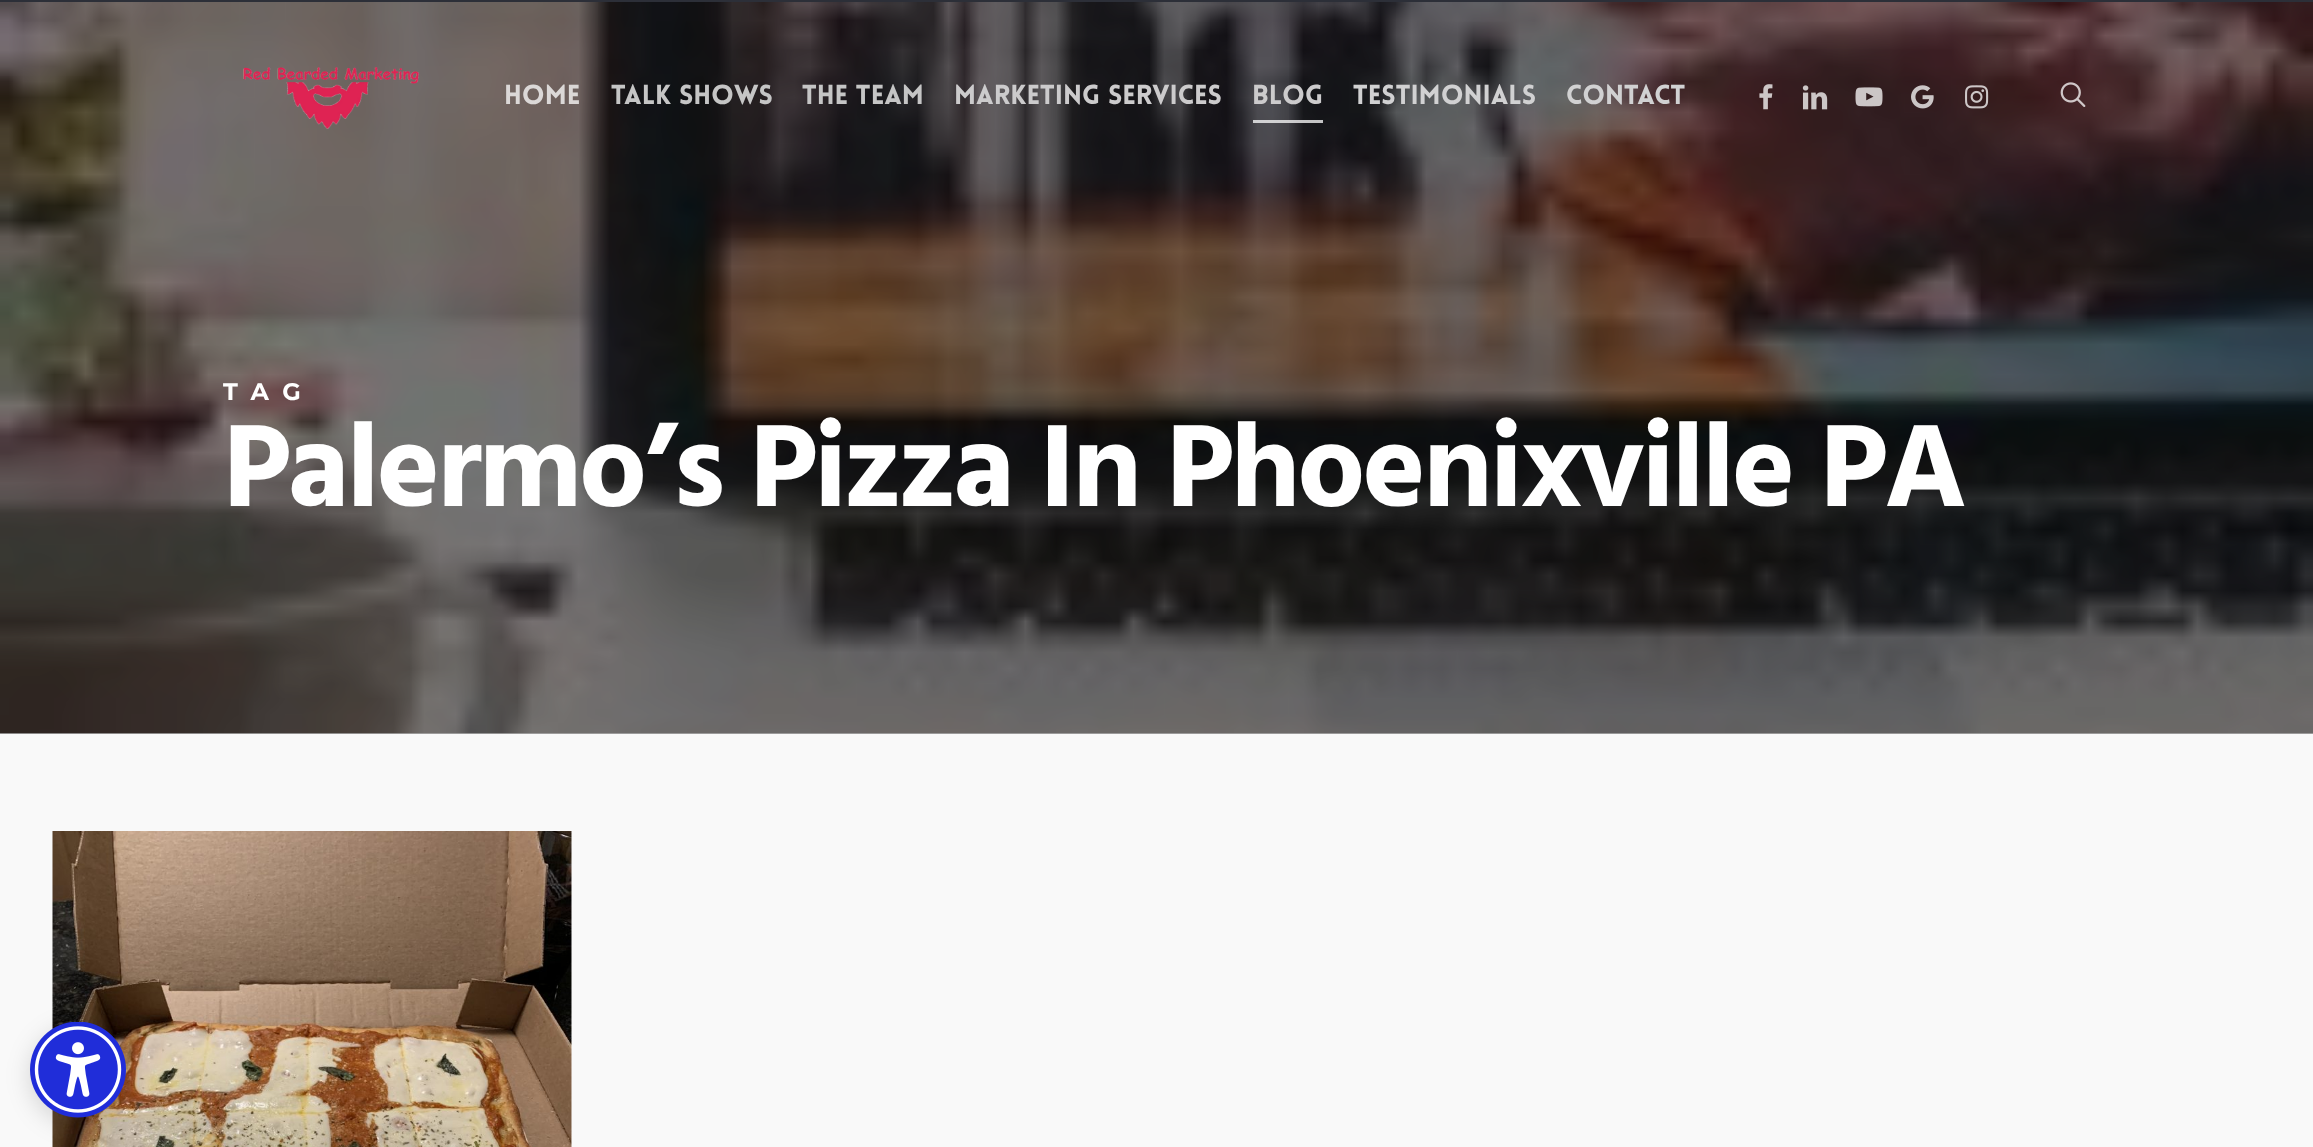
<svg xmlns="http://www.w3.org/2000/svg" width="2313" height="1147" viewBox="0 0 2313 1147">
  <style>
    .t1 { font: 900 27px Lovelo; fill: #dbd8d7; }
    .t2 { font: 900 27px Lovelo; fill: #c5c5c5; }
    .t3 { font: 900 27px Lovelo; fill: #cccbcc; }
    .t4 { font: 900 27px Lovelo; fill: #d1d1d2; }
    .t5 { font: 100 24px Montserrat; letter-spacing: 13.5px; fill: #fff; }
    .t6 { font: bold 120px Hind; letter-spacing: -3px; fill: #fff; }
  </style>
  <rect width="100%" height="100%" fill="#f9f9f9"/>
  <rect x="0" y="733" width="2313" height="1" fill="#ababab"/>
  <rect x="0" y="0" width="2313" height="2" fill="#2c2f38"/>
  <image x="0" y="2" width="2313" height="732" href="images/8.png"/>
  <image x="243" y="67" width="177" height="62" href="images/1.png"/>
  <text x="504" y="104" class="t1">Home</text>
  <text x="611" y="104" class="t2">Talk Shows</text>
  <text x="802" y="104" class="t2">the Team</text>
  <text x="954" y="104" class="t3">Marketing Services</text>
  <text x="1252" y="104" class="t3">Blog</text>
  <rect x="1253" y="120" width="70" height="3" fill="#ffffffbf"/>
  <text x="1353" y="104" class="t4">Testimonials</text>
  <text x="1566" y="104" class="t4">Contact</text>
  <image x="1759" y="84" width="14" height="26" href="images/2.png"/>
  <image x="1802" y="85" width="26" height="25" href="images/3.png"/>
  <image x="1855" y="87" width="28" height="20" href="images/4.png"/>
  <image x="1911" y="85" width="23" height="24" href="images/5.png"/>
  <image x="1965" y="85" width="24" height="24" href="images/6.png"/>
  <image x="2060" y="82" width="26" height="25" href="images/7.png"/>
  <text x="223" y="400" class="t5">TAG</text>
  <text x="223" y="506" class="t6">Palermo’s Pizza In Phoenixville PA</text>
  <rect x="571" y="831" width="1" height="316" fill="#fff"/>
  <image x="52" y="831" width="520" height="316" href="images/9.png"/>
  <rect x="30" y="1028" width="96" height="96" rx="48" fill="#00000026" filter="blur(12px)"/>
  <image x="30" y="1022" width="96" height="96" href="images/10.png"/>
</svg>
